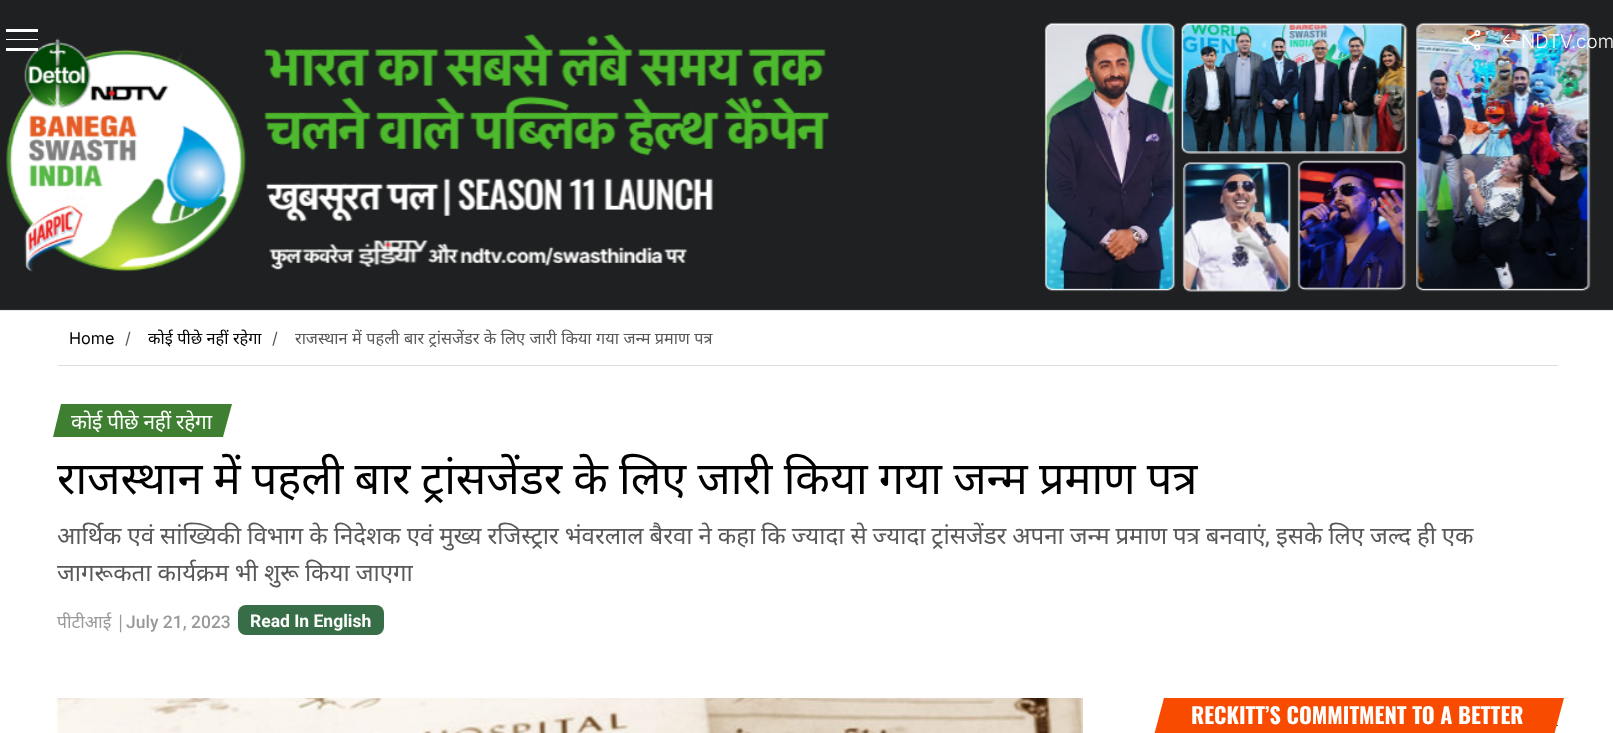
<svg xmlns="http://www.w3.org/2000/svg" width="1613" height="733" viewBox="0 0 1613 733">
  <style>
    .t1 { font: 300 18.75px Inter; fill: #fff; }
    .t2 { font: 16.25px Inter; fill: #000; }
    .t3 { font: 16.25px Inter; fill: #595959; }
    .t4 { font: 16.25px Noto Sans; fill: #000; }
    .t5 { font: 16.25px Noto Sans; fill: #595959; }
    .t6 { font: 20.75px Noto Sans; letter-spacing: -0.25px; fill: #fff; }
    .t7 { font: 45px Noto Sans; fill: #000; }
    .t8 { font: 24px Noto Sans; fill: #595959; }
    .t9 { font: 24px Roboto; fill: #595959; }
    .t10 { font: 17.5px Noto Sans; fill: #999; }
    .t11 { font: 500 17.5px Roboto; fill: #999; }
    .t12 { font: bold 17.5px Roboto; fill: #fff; }
    .t13 { font: bold 22px Oswald; fill: #fff; }
  </style>
  <rect width="100%" height="100%" fill="#fff"/>
  <image x="0" y="0" width="1613" height="311" href="images/1.png"/>
  <rect x="6" y="29" width="32" height="3" fill="#fff"/>
  <rect x="6" y="39" width="32" height="1" fill="#fff"/>
  <rect x="6" y="48" width="32" height="3" fill="#fff"/>
  <image x="1462" y="30" width="19" height="21" href="images/2.png"/>
  <image x="1503" y="34" width="13" height="13" href="images/3.png"/>
  <text x="1521" y="48" class="t1">NDTV.com</text>
  <rect x="58" y="365" width="1500" height="1" fill="#ddd"/>
  <text x="69" y="344" class="t2">Home</text>
  <text x="125" y="344" class="t3">/</text>
  <text x="148" y="344" word-spacing="0.3" class="t4">कोई पीछे नहीं रहेगा</text>
  <text x="272" y="344" class="t3">/</text>
  <text x="295" y="344" word-spacing="0.3" class="t5">राजस्थान में पहली बार ट्रांसजेंडर के लिए जारी किया गया जन्म प्रमाण पत्र</text>
  <path d="M61 404H232L223 437H53Z" fill="#3f7f32"/>
  <text x="71" y="429" class="t6">कोई पीछे नहीं रहेगा</text>
  <text x="57" y="494" word-spacing="-0.5" class="t7">राजस्थान में पहली बार ट्रांसजेंडर के लिए जारी किया गया जन्म प्रमाण पत्र</text>
  <text x="57" y="544" word-spacing="-0.3" class="t8">आर्थिक एवं सांख्यिकी विभाग के निदेशक एवं मुख्य रजिस्ट्रार भंवरलाल बैरवा ने कहा कि ज्यादा से ज्यादा ट्रांसजेंडर अपना जन्म प्रमाण पत्र बनवाएं</text>
  <text x="1265" y="544" class="t9">,</text>
  <text x="1276" y="544" word-spacing="-0.3" class="t8">इसके लिए जल्द ही एक</text>
  <text x="57" y="581" word-spacing="-0.25" class="t8">जागरूकता कार्यक्रम भी शुरू किया जाएगा</text>
  <text x="57" y="628" class="t10">पीटीआई |</text>
  <text x="126" y="628" class="t11">July 21, 2023</text>
  <rect x="238" y="605" width="146" height="30" rx="8" fill="#376e48"/>
  <text x="250" y="627" class="t12">Read In English</text>
  <image x="56" y="698" width="1027" height="35" href="images/4.png"/>
  <rect x="1556" y="725" width="2" height="1" fill="#555"/>
  <path d="M1164 698H1564L1549 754H1149Z" fill="#f84b00"/>
  <text x="1191" y="724" class="t13">RECKITT’S COMMITMENT TO A BETTER</text>
</svg>
